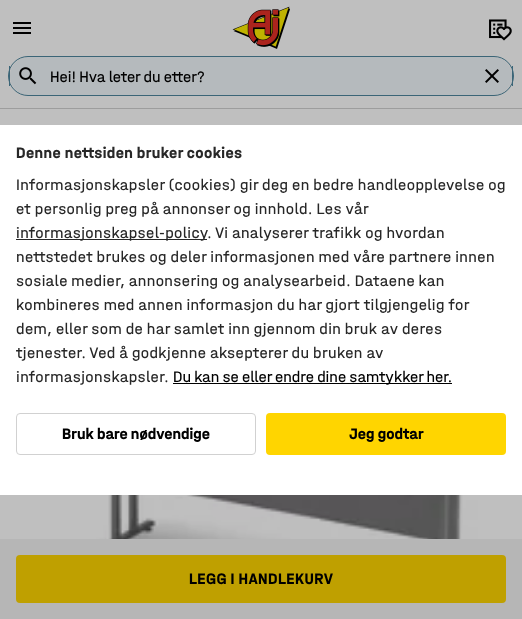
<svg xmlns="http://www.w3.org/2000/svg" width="522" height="619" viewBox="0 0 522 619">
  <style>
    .t1 { font: 16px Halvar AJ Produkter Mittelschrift; fill: #000; }
    .t2 { font: bold 16px Halvar AJ Produkter Mittelschrift; letter-spacing: 0.4px; fill: #000; }
    .t3 { font: bold 16px Halvar AJ Produkter Mittelschrift; letter-spacing: 0.4px; fill: #272727; }
    .t4 { font: 16px Halvar AJ Produkter Mittelschrift; letter-spacing: 0.4px; fill: #272727; }
    .t5 { font: bold 16px Halvar AJ Produkter Mittelschrift; fill: #000; }
  </style>
  <rect width="100%" height="100%" fill="#bfbfbf"/>
  <rect x="0" y="108" width="522" height="1" fill="#9d9d9d"/>
  <image x="13" y="22" width="18" height="12" href="images/1.png"/>
  <image x="232" y="6" width="58" height="43" href="images/2.png"/>
  <image x="489" y="19" width="23" height="22" href="images/3.png"/>
  <path d="M28 57H494C504 57 512 66 512 76C512 86 504 95 494 95H28C18 95 10 86 10 76C10 66 18 57 28 57Z" fill="#b5babd"/>
  <rect x="8.5" y="56.5" width="505" height="39" rx="19.5" fill="none" stroke="#3b6577"/>
  <image x="19" y="67" width="18" height="18" href="images/4.png"/>
  <rect x="512" y="66" width="1" height="20" fill="#3b6577"/>
  <rect x="9" y="66" width="1" height="20" fill="#3b6577"/>
  <text x="50" y="82" class="t1">Hei! Hva leter du etter?</text>
  <image x="485" y="69" width="14" height="14" href="images/5.png"/>
  <image x="39" y="495" width="446" height="44" href="images/6.png"/>
  <rect x="0" y="539" width="522" height="80" fill="#b6b6b6"/>
  <rect x="16" y="555" width="490" height="48" rx="4" fill="#bfa000"/>
  <text x="189" y="584" class="t2">LEGG I HANDLEKURV</text>
  <rect x="0" y="125" width="522" height="370" fill="#fff"/>
  <text x="16" y="158" class="t3">Denne nettsiden bruker cookies</text>
  <text x="16" y="190" class="t4">Informasjonskapsler (cookies) gir deg en bedre handleopplevelse og</text>
  <text x="16" y="214" class="t4">et personlig preg på annonser og innhold. Les vår</text>
  <rect x="16" y="239" width="191" height="1" fill="#272727"/>
  <text x="16" y="238" class="t4">informasjonskapsel-policy</text>
  <text x="207" y="238" class="t4">. Vi analyserer trafikk og hvordan</text>
  <text x="16" y="262" class="t4">nettstedet brukes og deler informasjonen med våre partnere innen</text>
  <text x="16" y="286" class="t4">sosiale medier, annonsering og analysearbeid. Dataene kan</text>
  <text x="16" y="310" class="t4">kombineres med annen informasjon du har gjort tilgjengelig for</text>
  <text x="16" y="334" class="t4">dem, eller som de har samlet inn gjennom din bruk av deres</text>
  <text x="16" y="358" class="t4">tjenester. Ved å godkjenne aksepterer du bruken av</text>
  <text x="16" y="382" class="t4">informasjonskapsler.</text>
  <rect x="173" y="383" width="279" height="1" fill="#000"/>
  <text x="173" y="382" class="t1">Du kan se eller endre dine samtykker her.</text>
  <rect x="16.5" y="413.5" width="239" height="41" rx="3.5" fill="none" stroke="#d1d1d1"/>
  <text x="62" y="439" class="t5">Bruk bare nødvendige</text>
  <rect x="266" y="413" width="240" height="42" rx="4" fill="#ffd500"/>
  <text x="349" y="439" class="t5">Jeg godtar</text>
</svg>
